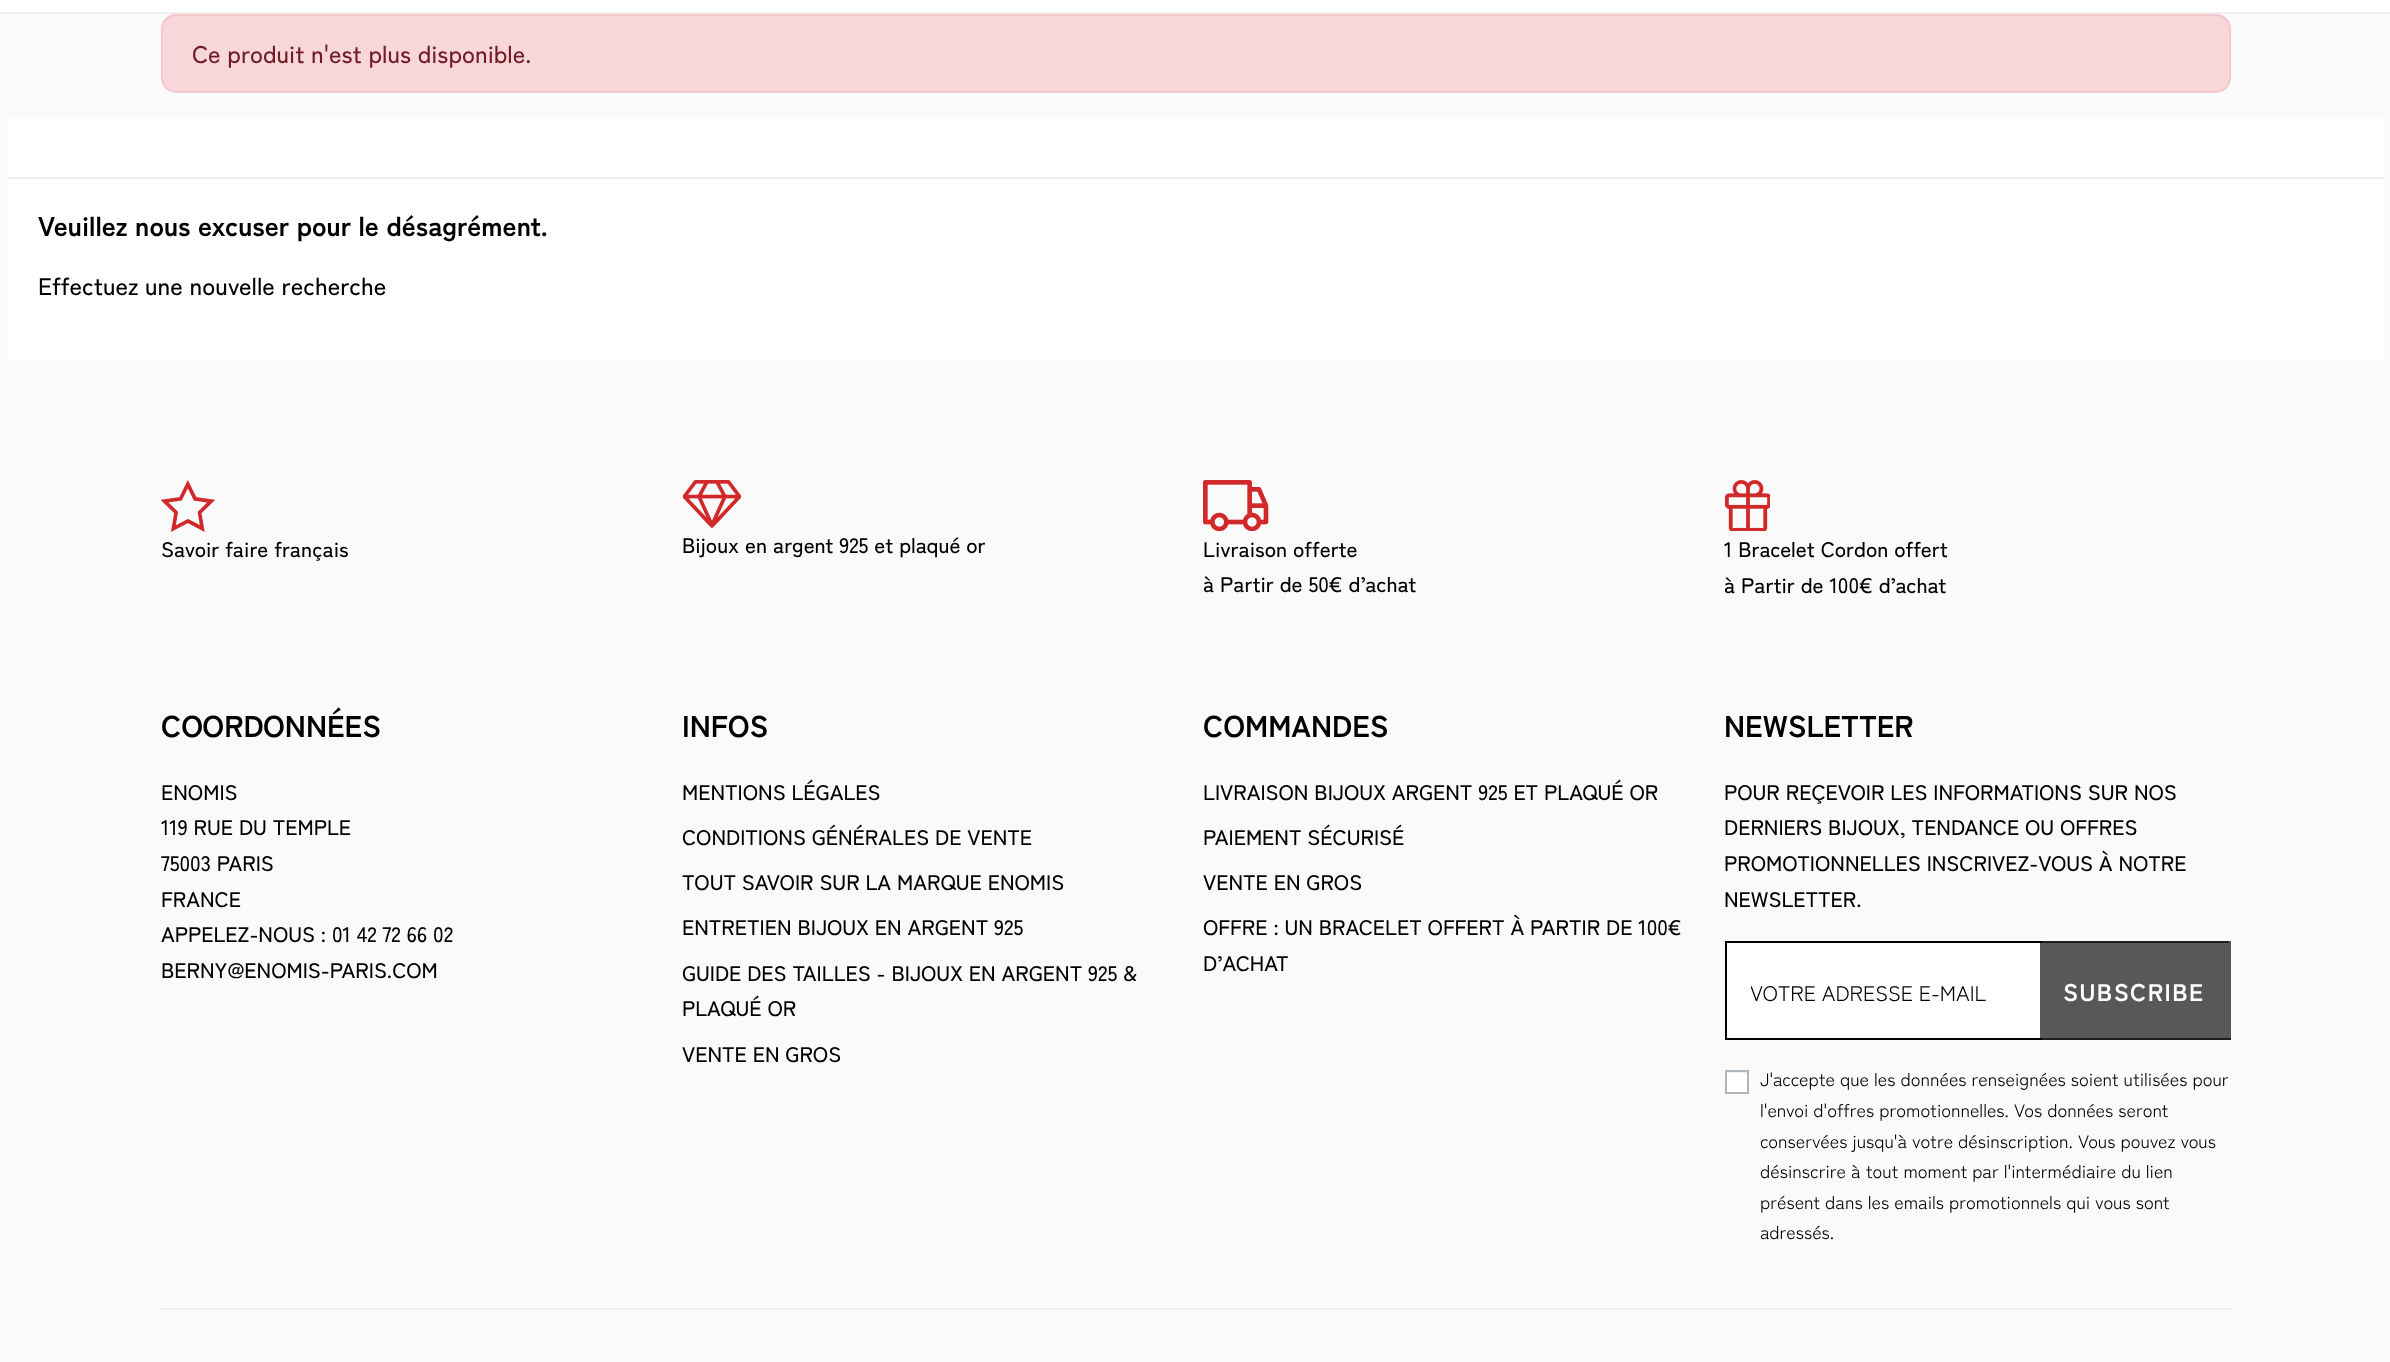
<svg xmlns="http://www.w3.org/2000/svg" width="2390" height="1362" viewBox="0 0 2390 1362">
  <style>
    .t1 { font: 500 24px Zen Kaku Gothic Antique; fill: #721c24; }
    .t2 { font: bold 27px Zen Kaku Gothic Antique; fill: #000; }
    .t3 { font: 500 24px Zen Kaku Gothic Antique; fill: #000; }
    .t4 { font: 500 21px Zen Kaku Gothic Antique; fill: #000; }
    .t5 { font: bold 30px Zen Kaku Gothic Antique; fill: #000; }
    .t6 { font: 21px Zen Kaku Gothic Antique; fill: #000; }
    .t7 { font: bold 24px Zen Kaku Gothic Antique; letter-spacing: 1.5px; fill: #fdfdfd; }
    .t8 { font: 18px Zen Kaku Gothic Antique; fill: #000; }
  </style>
  <defs>
    <clipPath id="clip1"><rect x="1751" y="977" width="267" height="30"/></clipPath>
  </defs>
  <rect width="100%" height="100%" fill="#fafafa"/>
  <rect x="2042" y="943" width="187" height="95" fill="#585858"/>
  <rect x="2040" y="1038" width="191" height="2" fill="#1f1f1f"/>
  <rect x="2040" y="941" width="191" height="2" fill="#1f1f1f"/>
  <rect x="0" y="0" width="2390" height="12" fill="#fff"/>
  <rect x="0" y="12" width="2390" height="2" fill="#eee"/>
  <rect x="162" y="15" width="2068" height="77" rx="14" fill="#f8d7da" stroke="#f5c6cb" stroke-width="2"/>
  <text x="192" y="63" class="t1">Ce produit n'est plus disponible.</text>
  <rect x="8" y="117" width="2376" height="60" fill="#fff"/>
  <rect x="8" y="177" width="2376" height="2" fill="#eee"/>
  <rect x="8" y="179" width="2376" height="181" fill="#fff"/>
  <text x="38" y="236" class="t2">Veuillez nous excuser pour le désagrément.</text>
  <text x="38" y="295" class="t3">Effectuez une nouvelle recherche</text>
  <image x="161" y="480" width="54" height="52" href="images/1.png"/>
  <text x="161" y="557" class="t4">Savoir faire français</text>
  <image x="683" y="480" width="58" height="48" href="images/2.png"/>
  <text x="682" y="553" class="t4">Bijoux en argent 925 et plaqué or</text>
  <image x="1203" y="480" width="66" height="51" href="images/3.png"/>
  <text x="1203" y="557" class="t4">Livraison offerte</text>
  <text x="1203" y="592" class="t4">à Partir de 50€ d’achat</text>
  <image x="1725" y="480" width="45" height="51" href="images/4.png"/>
  <text x="1724" y="557" class="t4">1 Bracelet Cordon offert</text>
  <text x="1724" y="593" class="t4">à Partir de 100€ d’achat</text>
  <text x="161" y="737" class="t5">COORDONNÉES</text>
  <text x="161" y="800" class="t4">ENOMIS</text>
  <text x="161" y="835" class="t4">119 RUE DU TEMPLE</text>
  <text x="161" y="871" class="t4">75003 PARIS</text>
  <text x="161" y="907" class="t4">FRANCE</text>
  <text x="161" y="942" class="t4">APPELEZ-NOUS : 01 42 72 66 02</text>
  <text x="161" y="978" class="t4">BERNY@ENOMIS-PARIS.COM</text>
  <text x="682" y="737" class="t5">INFOS</text>
  <text x="682" y="800" class="t4">MENTIONS LÉGALES</text>
  <text x="682" y="845" class="t4">CONDITIONS GÉNÉRALES DE VENTE</text>
  <text x="682" y="890" class="t4">TOUT SAVOIR SUR LA MARQUE ENOMIS</text>
  <text x="682" y="935" class="t4">ENTRETIEN BIJOUX EN ARGENT 925</text>
  <text x="682" y="981" class="t4">GUIDE DES TAILLES - BIJOUX EN ARGENT 925 &amp;</text>
  <text x="682" y="1016" class="t4">PLAQUÉ OR</text>
  <text x="682" y="1062" class="t4">VENTE EN GROS</text>
  <text x="1203" y="737" class="t5">COMMANDES</text>
  <text x="1203" y="800" class="t4">LIVRAISON BIJOUX ARGENT 925 ET PLAQUÉ OR</text>
  <text x="1203" y="845" class="t4">PAIEMENT SÉCURISÉ</text>
  <text x="1203" y="890" class="t4">VENTE EN GROS</text>
  <text x="1203" y="935" class="t4">OFFRE : UN BRACELET OFFERT À PARTIR DE 100€</text>
  <text x="1203" y="971" class="t4">D’ACHAT</text>
  <text x="1724" y="737" class="t5">NEWSLETTER</text>
  <text x="1724" y="800" class="t4">POUR REÇEVOIR LES INFORMATIONS SUR NOS</text>
  <text x="1724" y="835" class="t4">DERNIERS BIJOUX, TENDANCE OU OFFRES</text>
  <text x="1724" y="871" class="t4">PROMOTIONNELLES INSCRIVEZ-VOUS À NOTRE</text>
  <text x="1724" y="907" class="t4">NEWSLETTER.</text>
  <rect x="1727" y="943" width="313" height="95" fill="#fff"/>
  <rect x="2040" y="942" width="2" height="96" fill="#595959"/>
  <rect x="1725" y="941" width="317" height="2" fill="#000"/>
  <rect x="1725" y="1038" width="317" height="2" fill="#000"/>
  <rect x="1725" y="941" width="2" height="99" fill="#000"/>
  <g clip-path="url(#clip1)">
    <text x="1750" y="1001" class="t6">VOTRE ADRESSE E-MAIL</text>
  </g>
  <rect x="2229" y="941" width="2" height="99" fill="#585858"/>
  <rect x="2229" y="1038" width="2" height="2" fill="#1f1f1f"/>
  <text x="2063" y="1001" class="t7">SUBSCRIBE</text>
  <rect x="1727" y="1073" width="20" height="19" fill="#fff"/>
  <rect x="1727" y="1072" width="21" height="1" fill="#ececec"/>
  <rect x="1726" y="1071" width="22" height="22" fill="none" stroke="#adb5bd" stroke-width="2"/>
  <text x="1760" y="1086" class="t8">J'accepte que les données renseignées soient utilisées pour</text>
  <text x="1760" y="1117" class="t8">l'envoi d'offres promotionnelles. Vos données seront</text>
  <text x="1760" y="1148" class="t8">conservées jusqu'à votre désinscription. Vous pouvez vous</text>
  <text x="1760" y="1178" class="t8">désinscrire à tout moment par l'intermédiaire du lien</text>
  <text x="1760" y="1209" class="t8">présent dans les emails promotionnels qui vous sont</text>
  <text x="1760" y="1239" class="t8">adressés.</text>
  <rect x="161" y="1308" width="2070" height="2" fill="#eee"/>
</svg>
